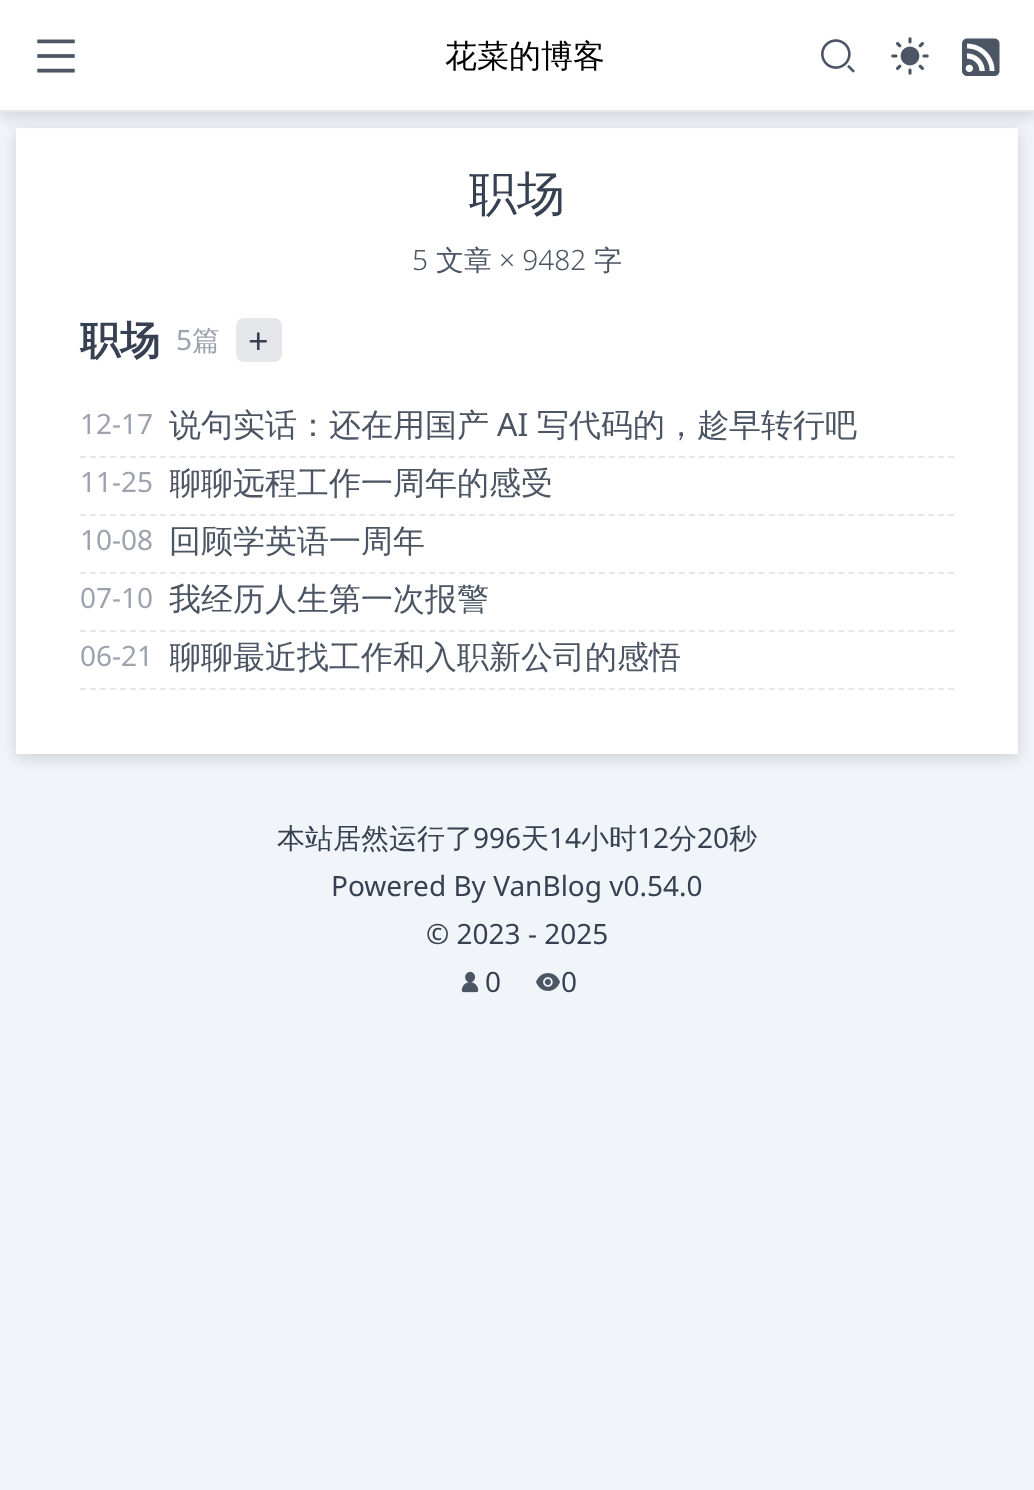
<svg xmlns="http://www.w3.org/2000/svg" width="1034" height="1490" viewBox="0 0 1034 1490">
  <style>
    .t1 { font: 500 32px WenQuanYi Zen Hei; fill: #000; }
    .t2 { font: 500 48px WenQuanYi Zen Hei; fill: #374151; }
    .t3 { font: 300 28px Noto Sans; fill: #4b5563; }
    .t4 { font: 500 28px WenQuanYi Zen Hei; fill: #4b5563; }
    .t5 { font: bold 40px WenQuanYi Zen Hei; fill: #374151; }
    .t6 { font: 28px Noto Sans; fill: #9ca3af; }
    .t7 { font: 500 28px WenQuanYi Zen Hei; fill: #9ca3af; }
    .t8 { font: 36px Noto Sans; fill: #374151; }
    .t9 { font: 500 32px WenQuanYi Zen Hei; fill: #4b5563; }
    .t10 { font: 32px Noto Sans; fill: #4b5563; }
    .t11 { font: 500 28px WenQuanYi Zen Hei; fill: #374151; }
    .t12 { font: 28px Noto Sans; fill: #374151; }
  </style>
  <defs>
    <clipPath id="clip1"><rect x="170" y="458" width="784" height="48"/></clipPath>
    <clipPath id="clip2"><rect x="170" y="632" width="784" height="48"/></clipPath>
  </defs>
  <rect width="100%" height="100%" fill="#f1f5f9"/>
  <rect x="16" y="132" width="1002" height="626" fill="#00000026" filter="blur(8px)"/>
  <rect x="16" y="128" width="1002" height="626" fill="#fff"/>
  <rect x="0" y="4" width="1034" height="112" fill="#00000026" filter="blur(8px)"/>
  <rect x="0" y="0" width="1034" height="110" fill="#fff"/>
  <rect x="0" y="110" width="1034" height="2" fill="#e5e7eb"/>
  <image x="37" y="39" width="38" height="34" href="images/1.png"/>
  <text x="445" y="67" class="t1">花菜的博客</text>
  <image x="821" y="39" width="34" height="34" href="images/2.png"/>
  <image x="891" y="37" width="38" height="38" href="images/3.png"/>
  <image x="962" y="38" width="38" height="38" href="images/4.png"/>
  <text x="469" y="210" class="t2">职场</text>
  <text x="412" y="270" class="t3">5</text>
  <text x="436" y="270" class="t4">文章</text>
  <text x="499" y="270" class="t3">× 9482</text>
  <text x="594" y="270" class="t4">字</text>
  <text x="80" y="354" class="t5">职场</text>
  <text x="176" y="350" class="t6">5</text>
  <text x="192" y="350" class="t7">篇</text>
  <rect x="236" y="318" width="46" height="44" rx="8" fill="#e5e7eb"/>
  <text x="248" y="354" class="t8">+</text>
  <path d="M80 457H954" fill="none" stroke="#e5e7eb" stroke-width="2" stroke-dasharray="6 3.98"/>
  <text x="80" y="434" class="t6">12-17</text>
  <text x="169" y="436" class="t9">说句实话：还在用国产</text>
  <text x="497" y="436" class="t10">AI</text>
  <text x="537" y="436" class="t9">写代码的，趁早转行吧</text>
  <path d="M80 515H954" fill="none" stroke="#e5e7eb" stroke-width="2" stroke-dasharray="6 3.98"/>
  <text x="80" y="492" class="t6">11-25</text>
  <g clip-path="url(#clip1)">
    <text x="169" y="494" class="t9">聊聊远程工作一周年的感受</text>
  </g>
  <path d="M80 573H954" fill="none" stroke="#e5e7eb" stroke-width="2" stroke-dasharray="6 3.98"/>
  <text x="80" y="550" class="t6">10-08</text>
  <text x="169" y="552" class="t9">回顾学英语一周年</text>
  <path d="M80 631H954" fill="none" stroke="#e5e7eb" stroke-width="2" stroke-dasharray="6 3.98"/>
  <text x="80" y="608" class="t6">07-10</text>
  <text x="169" y="610" class="t9">我经历人生第一次报警</text>
  <path d="M80 689H954" fill="none" stroke="#e5e7eb" stroke-width="2" stroke-dasharray="6 3.98"/>
  <text x="80" y="666" class="t6">06-21</text>
  <g clip-path="url(#clip2)">
    <text x="169" y="668" class="t9">聊聊最近找工作和入职新公司的感悟</text>
  </g>
  <text x="277" y="848" class="t11">本站居然运行了</text>
  <text x="473" y="848" class="t12">996</text>
  <text x="521" y="848" class="t11">天</text>
  <text x="549" y="848" class="t12">14</text>
  <text x="581" y="848" class="t11">小时</text>
  <text x="637" y="848" class="t12">12</text>
  <text x="669" y="848" class="t11">分</text>
  <text x="697" y="848" class="t12">20</text>
  <text x="729" y="848" class="t11">秒</text>
  <text x="331" y="896" class="t12">Powered By VanBlog v0.54.0</text>
  <text x="426" y="944" class="t12">© 2023 - 2025</text>
  <image x="461" y="971" width="18" height="22" href="images/5.png"/>
  <text x="485" y="992" class="t12">0</text>
  <image x="536" y="973" width="24" height="18" href="images/6.png"/>
  <text x="561" y="992" class="t12">0</text>
</svg>
